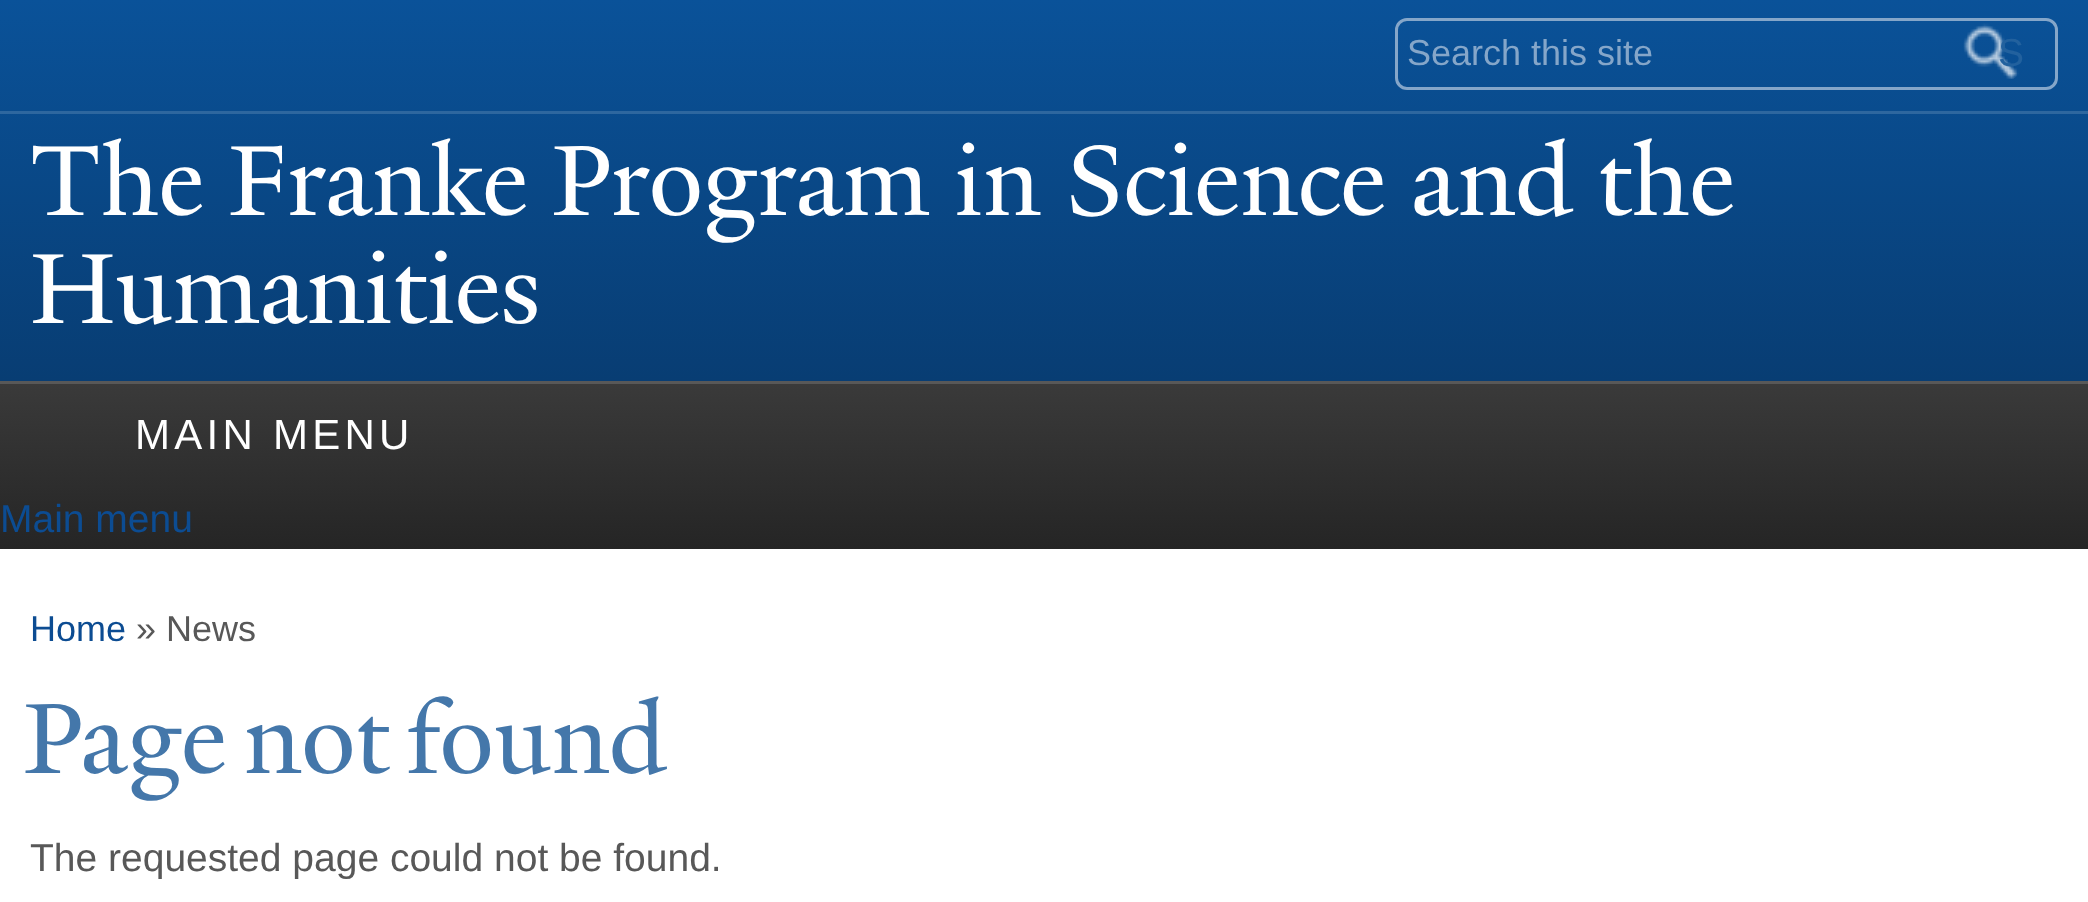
<svg xmlns="http://www.w3.org/2000/svg" width="2088" height="902" viewBox="0 0 2088 902">
  <style>
    .t1 { font: 36px Liberation Sans; fill: #85a6c9; }
    .t2 { font: 39px Liberation Sans; fill: #22619e; }
    .t3 { font: 108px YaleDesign; fill: #fff; }
    .t4 { font: 42px Liberation Sans; letter-spacing: 4.25px; fill: #fff; }
    .t5 { font: 39px Liberation Sans; fill: #0c4c92; }
    .t6 { font: 36px Liberation Sans; fill: #0c4c92; }
    .t7 { font: 36px Liberation Sans; fill: #585858; }
    .t8 { font: 108px YaleDesign; letter-spacing: -3px; fill: #47a; }
    .t9 { font: 108px YaleDesign; fill: #47a; }
    .t10 { font: 39px Liberation Sans; fill: #585858; }
  </style>
  <defs>
    <linearGradient id="g1" gradientUnits="userSpaceOnUse" x1="1044" y1="0" x2="1044" y2="381"><stop offset="0" stop-color="#0a5299"/><stop offset="1" stop-color="#083d73"/></linearGradient>
    <linearGradient id="g2" gradientUnits="userSpaceOnUse" x1="1044" y1="384" x2="1044" y2="549"><stop offset="0" stop-color="#3a3a3a"/><stop offset="1" stop-color="#252525"/></linearGradient>
  </defs>
  <rect width="100%" height="100%" fill="#fff"/>
  <rect x="0" y="0" width="2088" height="381" fill="url(#g1)"/>
  <rect x="0" y="111" width="2088" height="3" fill="#2e679f"/>
  <rect x="1396.5" y="19.5" width="660" height="69" rx="10.5" fill="none" stroke="#85a6c9" stroke-width="3"/>
  <text x="1407" y="65" class="t1">Search this site</text>
  <image x="1963" y="23" width="56" height="56" href="images/1.png"/>
  <text x="1998" y="66" class="t2">S</text>
  <text x="30" y="215" class="t3">The Franke Program in Science and the</text>
  <text x="30" y="323" class="t3">Humanities</text>
  <rect x="0" y="384" width="2088" height="165" fill="url(#g2)"/>
  <rect x="0" y="381" width="2088" height="3" fill="#585858"/>
  <text x="135" y="449" class="t4">MAIN MENU</text>
  <text x="0" y="532" class="t5">Main menu</text>
  <text x="30" y="641" class="t6">Home</text>
  <text x="136" y="641" class="t7">» News</text>
  <text x="24" y="773" class="t8">P</text>
  <text x="80" y="773" word-spacing="-8" class="t9">age not found</text>
  <text x="30" y="871" class="t10">The requested page could not be found.</text>
</svg>
